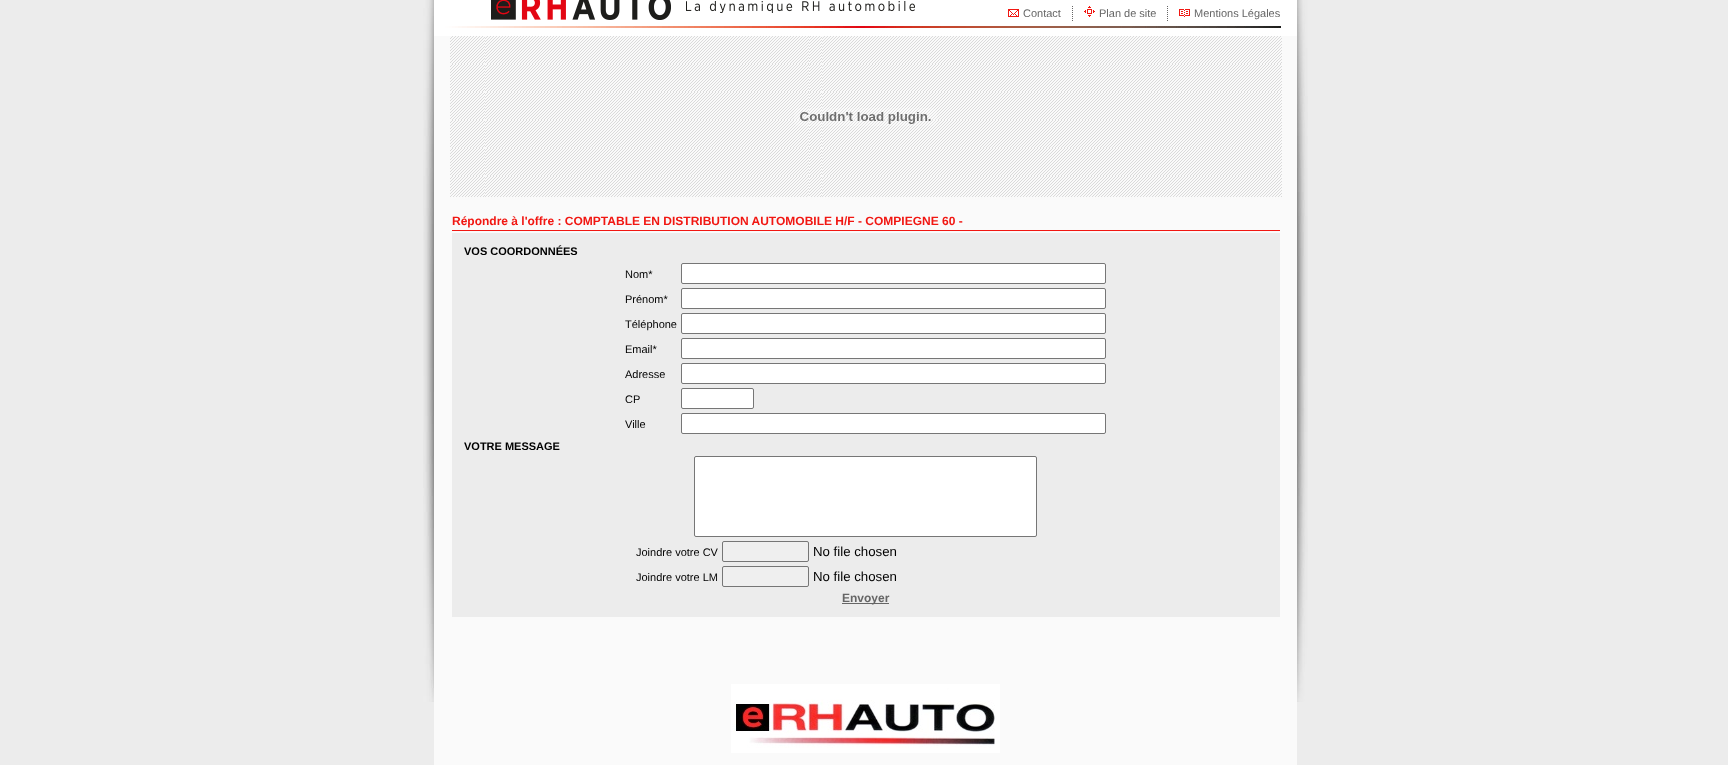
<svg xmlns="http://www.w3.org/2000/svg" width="1728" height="765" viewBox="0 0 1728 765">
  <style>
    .t1 { font: 11px Liberation Sans; fill: #666; }
    .t2 { font: bold 12px Liberation Sans; fill: #f11712; }
    .t3 { font: bold 11px Liberation Sans; fill: #000; }
    .t4 { font: 11px Liberation Sans; fill: #000; }
    .t5 { font: 13.25px Liberation Sans; fill: #000; }
    .t6 { font: bold 12px Liberation Sans; fill: #666; }
  </style>
  <rect width="100%" height="100%" fill="#ececec"/>
  <image x="423" y="0" width="11" height="702" href="images/1.png"/>
  <image x="434" y="36" width="863" height="161" href="images/2.png"/>
  <image x="434" y="0" width="863" height="36" href="images/3.png"/>
  <image x="1008" y="9" width="11" height="8" href="images/4.png"/>
  <text x="1023" y="17" class="t1">Contact</text>
  <image x="1072" y="6" width="1" height="15" href="images/5.png"/>
  <image x="1084" y="6" width="11" height="11" href="images/6.png"/>
  <text x="1099" y="17" class="t1">Plan de site</text>
  <image x="1167" y="6" width="1" height="15" href="images/5.png"/>
  <image x="1179" y="9" width="11" height="8" href="images/7.png"/>
  <text x="1194" y="17" class="t1">Mentions Légales</text>
  <image x="794" y="108" width="143" height="18" href="images/8.png"/>
  <rect x="434" y="197" width="863" height="568" fill="#fafafa"/>
  <text x="452" y="225" class="t2">Répondre à l'offre : COMPTABLE EN DISTRIBUTION AUTOMOBILE H/F - COMPIEGNE 60 -</text>
  <rect x="452" y="230" width="828" height="1" fill="#f11712"/>
  <rect x="452" y="233" width="828" height="384" fill="#ececec"/>
  <text x="464" y="255" class="t3">VOS COORDONNÉES</text>
  <text x="625" y="278" class="t4">Nom*</text>
  <rect x="681.5" y="263.5" width="424" height="20" rx="1.5" fill="#fff" stroke="#767676"/>
  <text x="625" y="303" class="t4">Prénom*</text>
  <rect x="681.5" y="288.5" width="424" height="20" rx="1.5" fill="#fff" stroke="#767676"/>
  <text x="625" y="328" class="t4">Téléphone</text>
  <rect x="681.5" y="313.5" width="424" height="20" rx="1.5" fill="#fff" stroke="#767676"/>
  <text x="625" y="353" class="t4">Email*</text>
  <rect x="681.5" y="338.5" width="424" height="20" rx="1.5" fill="#fff" stroke="#767676"/>
  <text x="625" y="378" class="t4">Adresse</text>
  <rect x="681.5" y="363.5" width="424" height="20" rx="1.5" fill="#fff" stroke="#767676"/>
  <text x="625" y="403" class="t4">CP</text>
  <rect x="681.5" y="388.5" width="72" height="20" rx="1.5" fill="#fff" stroke="#767676"/>
  <text x="625" y="428" class="t4">Ville</text>
  <rect x="681.5" y="413.5" width="424" height="20" rx="1.5" fill="#fff" stroke="#767676"/>
  <text x="464" y="450" class="t3">VOTRE MESSAGE</text>
  <rect x="694.5" y="456.5" width="342" height="80" rx="1.5" fill="#fff" stroke="#767676"/>
  <text x="636" y="556" class="t4">Joindre votre CV</text>
  <rect x="722.5" y="541.5" width="86" height="20" rx="1.5" fill="#efefef" stroke="#767676"/>
  <text x="813" y="556" class="t5">No file chosen</text>
  <text x="636" y="581" class="t4">Joindre votre LM</text>
  <rect x="722.5" y="566.5" width="86" height="20" rx="1.5" fill="#efefef" stroke="#767676"/>
  <text x="813" y="581" class="t5">No file chosen</text>
  <rect x="842" y="603" width="47" height="1" fill="#666"/>
  <text x="842" y="602" class="t6">Envoyer</text>
  <image x="1297" y="0" width="11" height="702" href="images/9.png"/>
  <image x="731" y="684" width="269" height="69" href="images/10.png"/>
</svg>
